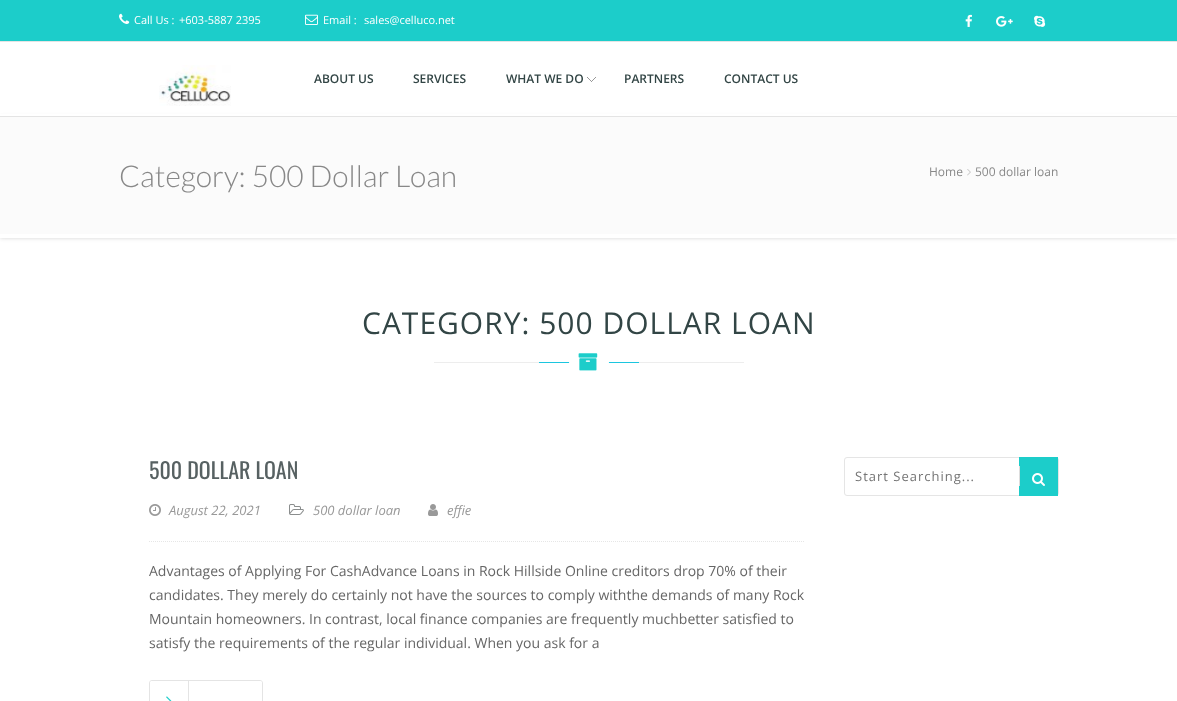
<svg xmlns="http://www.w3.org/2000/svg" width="1177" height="701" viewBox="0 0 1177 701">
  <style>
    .t1 { font: 11px Open Sans; fill: #fff; }
    .t2 { font: 600 12px Open Sans; fill: #324545; }
    .t3 { font: 300 30px Lato; fill: #888; }
    .t4 { font: 12px Open Sans; fill: #888; }
    .t5 { font: 30px Open Sans; letter-spacing: 1px; fill: #324545; }
    .t6 { font: 22px Oswald; fill: #576162; }
    .t7 { font: italic 13px Open Sans; fill: #999; }
    .t8 { font: 14px Open Sans; fill: #666; }
    .t9 { font: 13px Open Sans; letter-spacing: 1px; fill: #757575; }
  </style>
  <rect width="100%" height="100%" fill="#fff"/>
  <rect x="0" y="0" width="1177" height="41" fill="#1ccdca"/>
  <rect x="0" y="41" width="1177" height="1" fill="#e4e4e4"/>
  <image x="119" y="13" width="11" height="11" href="images/1.png"/>
  <text x="134" y="24" class="t1">Call Us :</text>
  <text x="179" y="24" class="t1">+603-5887 2395</text>
  <image x="305" y="14" width="13" height="11" href="images/2.png"/>
  <text x="323" y="24" class="t1">Email :</text>
  <text x="364" y="24" class="t1">sales@celluco.net</text>
  <image x="965" y="14" width="7" height="13" href="images/3.png"/>
  <image x="996" y="16" width="17" height="11" href="images/4.png"/>
  <image x="1034" y="15" width="12" height="12" href="images/5.png"/>
  <rect x="0" y="117" width="1177" height="121" fill="#0000002b" filter="blur(2px)"/>
  <rect x="0" y="114" width="1177" height="2" fill="#fff"/>
  <rect x="0" y="116" width="1177" height="1" fill="#e4e4e4"/>
  <image x="159" y="65" width="72" height="41" href="images/6.png"/>
  <text x="314" y="83" class="t2">ABOUT US</text>
  <text x="413" y="83" class="t2">SERVICES</text>
  <text x="506" y="83" class="t2">WHAT WE DO</text>
  <image x="587" y="77" width="9" height="5" href="images/7.png"/>
  <text x="624" y="83" class="t2">PARTNERS</text>
  <text x="724" y="83" class="t2">CONTACT US</text>
  <rect x="0" y="117" width="1177" height="117" fill="#fbfbfb"/>
  <rect x="0" y="234" width="1177" height="4" fill="#fff"/>
  <text x="119" y="187" class="t3">Category: 500 Dollar Loan</text>
  <text x="929" y="176" class="t4">Home</text>
  <image x="967" y="169" width="4" height="7" href="images/8.png"/>
  <text x="975" y="176" class="t4">500 dollar loan</text>
  <text x="362" y="334" class="t5">CATEGORY: 500 DOLLAR LOAN</text>
  <rect x="434" y="362" width="310" height="1" fill="#ededed"/>
  <rect x="539" y="362" width="100" height="1" fill="#1cc6df"/>
  <circle cx="589" cy="362" r="20" fill="#fff"/>
  <image x="578" y="353" width="20" height="18" href="images/9.png"/>
  <text x="149" y="479" class="t6">500 DOLLAR LOAN</text>
  <path d="M149 541.5H804" fill="none" stroke="#e6e6e6" stroke-dasharray="1 1"/>
  <image x="149" y="504" width="12" height="12" href="images/10.png"/>
  <text x="169" y="515" class="t7">August 22, 2021</text>
  <image x="289" y="504" width="15" height="11" href="images/11.png"/>
  <text x="313" y="515" class="t7">500 dollar loan</text>
  <image x="428" y="504" width="10" height="12" href="images/12.png"/>
  <text x="447" y="515" class="t7">effie</text>
  <text x="149" y="576" class="t8">Advantages of Applying For CashAdvance Loans in Rock Hillside Online creditors drop 70% of their</text>
  <text x="149" y="600" class="t8">candidates. They merely do certainly not have the sources to comply withthe demands of many Rock</text>
  <text x="149" y="624" class="t8">Mountain homeowners. In contrast, local finance companies are frequently muchbetter satisfied to</text>
  <text x="149" y="648" class="t8">satisfy the requirements of the regular individual. When you ask for a</text>
  <rect x="149.5" y="680.5" width="113" height="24" rx="2.5" fill="none" stroke="#e4e4e4"/>
  <rect x="150" y="681" width="112" height="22" rx="2" fill="#fff"/>
  <image x="166" y="696" width="6" height="5" href="images/13.png"/>
  <rect x="188" y="681" width="1" height="20" fill="#e4e4e4"/>
  <rect x="844.5" y="457.5" width="214" height="38" rx="2.5" fill="none" stroke="#e5e5e5"/>
  <text x="855" y="481" class="t9">Start Searching...</text>
  <rect x="1019" y="457" width="39" height="39" fill="#1ccdca"/>
  <rect x="1019" y="466" width="1" height="20" fill="#ddd"/>
  <image x="1032" y="473" width="13" height="13" href="images/14.png"/>
</svg>
